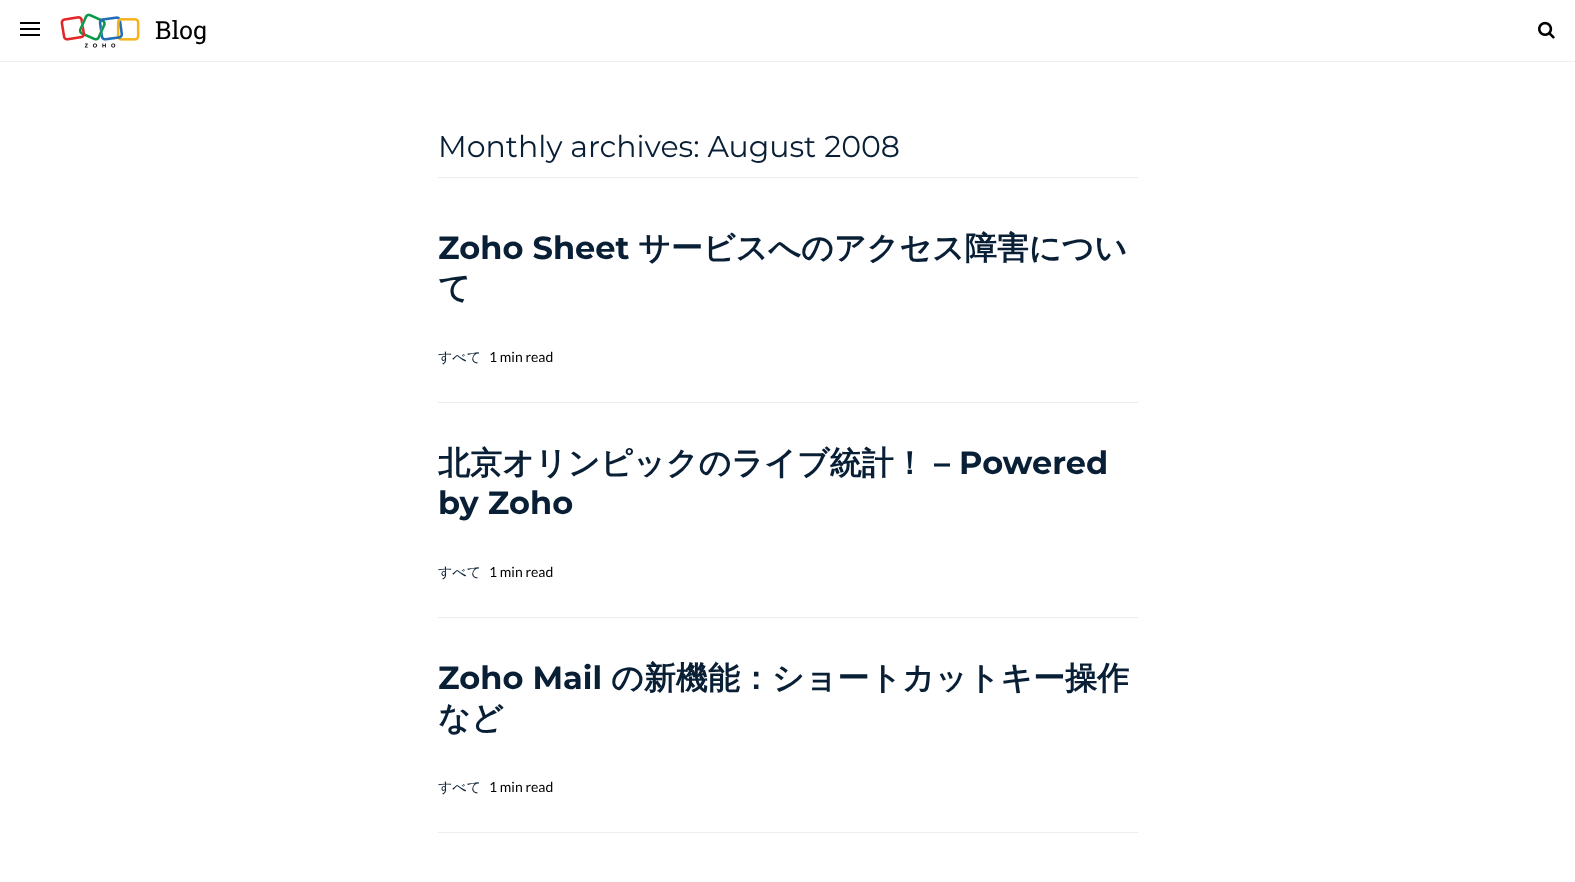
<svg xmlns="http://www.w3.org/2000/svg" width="1575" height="882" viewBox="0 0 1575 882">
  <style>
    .t1 { font: 25px Roboto Slab; fill: #000; }
    .t2 { font: 30px Montserrat; fill: #091f35; }
    .t3 { font: bold 32px Montserrat; fill: #091f35; }
    .t4 { font: bold 32px WenQuanYi Zen Hei; fill: #091f35; }
    .t5 { font: 500 14px WenQuanYi Zen Hei; fill: #091f35; }
    .t6 { font: 14px Lato; fill: #000; }
  </style>
  <rect width="100%" height="100%" fill="#fff"/>
  <rect x="0" y="61" width="1575" height="1" fill="#f0f0f0"/>
  <rect x="20" y="28" width="20" height="2" fill="#000"/>
  <rect x="20" y="22" width="20" height="2" fill="#000"/>
  <rect x="20" y="34" width="20" height="2" fill="#000"/>
  <image x="60" y="13" width="80" height="35" href="images/1.png"/>
  <text x="155" y="39" class="t1">Blog</text>
  <image x="1538" y="21" width="17" height="18" href="images/2.png"/>
  <rect x="438" y="177" width="700" height="1" fill="#e8eef1"/>
  <text x="438" y="157" class="t2">Monthly archives: August 2008</text>
  <rect x="438" y="402" width="700" height="1" fill="#e8eef1"/>
  <text x="438" y="259" class="t3">Zoho Sheet</text>
  <text x="638" y="259" class="t4">サービスへのアクセス障害につい</text>
  <text x="438" y="299" class="t4">て</text>
  <text x="438" y="362" class="t5">すべて</text>
  <text x="489" y="362" class="t6">1 min read</text>
  <rect x="438" y="617" width="700" height="1" fill="#e8eef1"/>
  <text x="438" y="474" class="t4">北京オリンピックのライブ統計！</text>
  <text x="934" y="474" class="t3">– Powered</text>
  <text x="438" y="514" class="t3">by Zoho</text>
  <text x="438" y="577" class="t5">すべて</text>
  <text x="489" y="577" class="t6">1 min read</text>
  <rect x="438" y="832" width="700" height="1" fill="#e8eef1"/>
  <text x="438" y="689" class="t3">Zoho Mail</text>
  <text x="611" y="689" class="t4">の新機能：ショートカットキー操作</text>
  <text x="438" y="729" class="t4">など</text>
  <text x="438" y="792" class="t5">すべて</text>
  <text x="489" y="792" class="t6">1 min read</text>
</svg>
